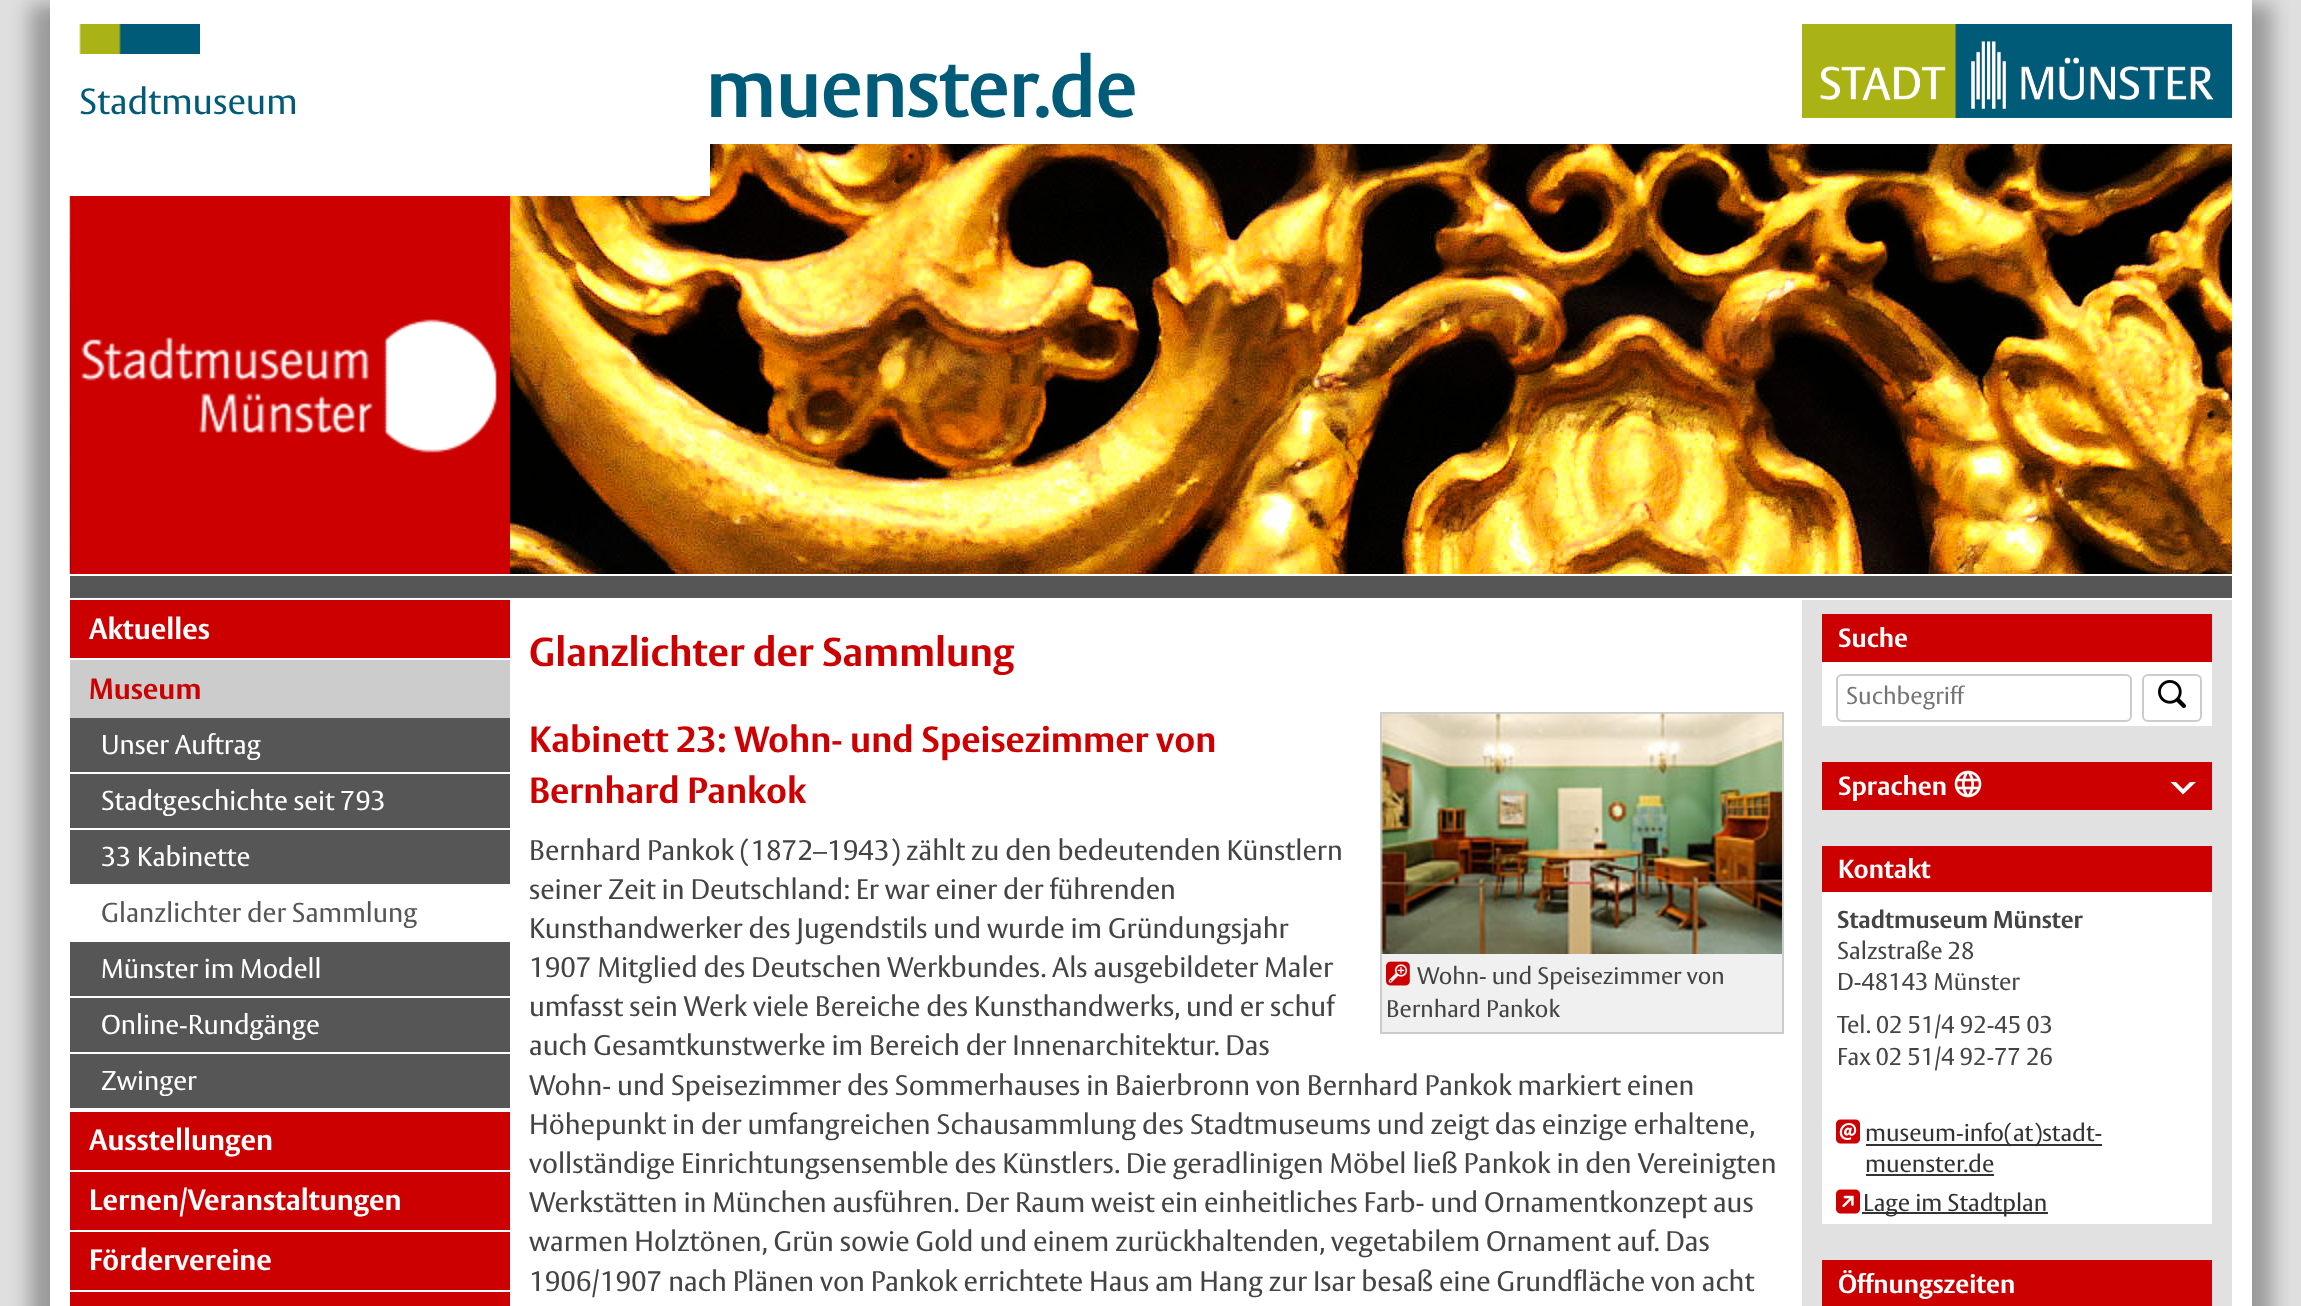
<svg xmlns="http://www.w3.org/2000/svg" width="2301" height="1306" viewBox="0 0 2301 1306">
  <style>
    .t1 { font: 36px 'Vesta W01'; fill: #005b79; }
    .t2 { font: bold 80px 'Vesta W01'; fill: #005b79; }
    .t3 { font: bold 29px 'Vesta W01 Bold'; fill: #fff; }
    .t4 { font: bold 29px 'Vesta W01 Bold'; fill: #c00; }
    .t5 { font: 27px 'Vesta W01'; fill: #fff; }
    .t6 { font: 27px 'Vesta W01'; fill: #565656; }
    .t7 { font: bold 40px 'Vesta W01 Bold'; fill: #c00; }
    .t8 { font: bold 36px 'Vesta W01 Bold'; fill: #c00; }
    .t9 { font: 28px 'Vesta W01'; fill: #444; }
    .t10 { font: 23.75px 'Vesta W01'; fill: #444; }
    .t11 { font: bold 26px 'Vesta W01 Bold'; fill: #fff; }
    .t12 { font: 24px 'Vesta W01'; fill: #757575; }
    .t13 { font: bold 24px 'Vesta W01 Bold'; fill: #444; }
    .t14 { font: 24px 'Vesta W01'; fill: #444; }
    .t15 { font: 24px 'Vesta W01'; fill: #333; }
  </style>
  <rect width="100%" height="100%" fill="#dfdfdf"/>
  <rect x="30" y="4" width="2202" height="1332" fill="#999" filter="blur(10px)"/>
  <rect x="70" y="4" width="2202" height="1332" fill="#999" filter="blur(10px)"/>
  <rect x="50" y="0" width="2202" height="1306" fill="#fff"/>
  <image x="70" y="144" width="2162" height="430" href="images/3.png"/>
  <rect x="70" y="144" width="640" height="52" fill="#fff"/>
  <image x="79" y="24" width="121" height="30" href="images/1.png"/>
  <text x="79" y="114" class="t1">Stadtmuseum</text>
  <text x="705" y="117" class="t2">muenster.de</text>
  <image x="1802" y="24" width="430" height="94" href="images/2.png"/>
  <image x="69" y="196" width="441" height="378" href="images/4.png"/>
  <rect x="70" y="576" width="2162" height="22" fill="#565656"/>
  <rect x="70" y="600" width="440" height="58" fill="#c00"/>
  <text x="89" y="639" class="t3">Aktuelles</text>
  <rect x="70" y="660" width="440" height="58" fill="#ccc"/>
  <text x="89" y="699" class="t4">Museum</text>
  <rect x="70" y="718" width="440" height="54" fill="#565656"/>
  <text x="101" y="754" class="t5">Unser Auftrag</text>
  <rect x="70" y="774" width="440" height="54" fill="#565656"/>
  <text x="101" y="810" class="t5">Stadtgeschichte seit 793</text>
  <rect x="70" y="830" width="440" height="54" fill="#565656"/>
  <text x="101" y="866" class="t5">33 Kabinette</text>
  <text x="101" y="922" class="t6">Glanzlichter der Sammlung</text>
  <rect x="70" y="942" width="440" height="54" fill="#565656"/>
  <text x="101" y="978" class="t5">Münster im Modell</text>
  <rect x="70" y="998" width="440" height="54" fill="#565656"/>
  <text x="101" y="1034" class="t5">Online-Rundgänge</text>
  <rect x="70" y="1054" width="440" height="54" fill="#565656"/>
  <text x="101" y="1090" class="t5">Zwinger</text>
  <rect x="70" y="1112" width="440" height="58" fill="#c00"/>
  <text x="89" y="1150" class="t3">Ausstellungen</text>
  <rect x="70" y="1172" width="440" height="58" fill="#c00"/>
  <text x="89" y="1210" class="t3">Lernen/Veranstaltungen</text>
  <rect x="70" y="1232" width="440" height="58" fill="#c00"/>
  <text x="89" y="1270" class="t3">Fördervereine</text>
  <rect x="70" y="1292" width="440" height="14" fill="#c00"/>
  <text x="529" y="666" class="t7">Glanzlichter der Sammlung</text>
  <text x="529" y="752" class="t8">Kabinett 23: Wohn- und Speisezimmer von</text>
  <text x="529" y="803" class="t8">Bernhard Pankok</text>
  <text x="529" y="860" class="t9">Bernhard Pankok (1872–1943) zählt zu den bedeutenden Künstlern</text>
  <text x="529" y="899" class="t9">seiner Zeit in Deutschland: Er war einer der führenden</text>
  <text x="529" y="938" class="t9">Kunsthandwerker des Jugendstils und wurde im Gründungsjahr</text>
  <text x="529" y="977" class="t9">1907 Mitglied des Deutschen Werkbundes. Als ausgebildeter Maler</text>
  <text x="529" y="1016" class="t9">umfasst sein Werk viele Bereiche des Kunsthandwerks, und er schuf</text>
  <text x="529" y="1055" class="t9">auch Gesamtkunstwerke im Bereich der Innenarchitektur. Das</text>
  <text x="529" y="1095" class="t9">Wohn- und Speisezimmer des Sommerhauses in Baierbronn von Bernhard Pankok markiert einen</text>
  <text x="529" y="1134" class="t9">Höhepunkt in der umfangreichen Schausammlung des Stadtmuseums und zeigt das einzige erhaltene,</text>
  <text x="529" y="1173" class="t9">vollständige Einrichtungsensemble des Künstlers. Die geradlinigen Möbel ließ Pankok in den Vereinigten</text>
  <text x="529" y="1212" class="t9">Werkstätten in München ausführen. Der Raum weist ein einheitliches Farb- und Ornamentkonzept aus</text>
  <text x="529" y="1251" class="t9">warmen Holztönen, Grün sowie Gold und einem zurückhaltenden, vegetabilem Ornament auf. Das</text>
  <text x="529" y="1291" class="t9">1906/1907 nach Plänen von Pankok errichtete Haus am Hang zur Isar besaß eine Grundfläche von acht</text>
  <rect x="1381" y="713" width="402" height="320" fill="#f0f0f0" stroke="#ccc" stroke-width="2"/>
  <image x="1381" y="713" width="401" height="241" href="images/5.png"/>
  <image x="1386" y="961" width="24" height="25" href="images/6.png"/>
  <text x="1417" y="984" class="t10">Wohn- und Speisezimmer von</text>
  <text x="1386" y="1017" class="t10">Bernhard Pankok</text>
  <rect x="1802" y="600" width="430" height="706" fill="#e1e1e1"/>
  <rect x="1822" y="662" width="390" height="64" fill="#fff"/>
  <rect x="1822" y="614" width="390" height="48" fill="#c00"/>
  <text x="1838" y="647" class="t11">Suche</text>
  <rect x="1837" y="675" width="294" height="46" rx="5" fill="none" stroke="#ccc" stroke-width="2"/>
  <text x="1846" y="704" class="t12">Suchbegriff</text>
  <rect x="2143" y="675" width="58" height="46" rx="5" fill="none" stroke="#ccc" stroke-width="2"/>
  <image x="2158" y="680" width="28" height="28" href="images/7.png"/>
  <rect x="1822" y="762" width="390" height="48" fill="#c00"/>
  <text x="1838" y="795" class="t11">Sprachen</text>
  <image x="1954" y="770" width="28" height="28" href="images/8.png"/>
  <path d="M2196 782L2183 794.5V789L2190 782ZM2183 794.5L2170.5 782H2176L2183 789Z" fill="#fff"/>
  <rect x="1822" y="892" width="390" height="332" fill="#fff"/>
  <rect x="1822" y="846" width="390" height="46" fill="#c00"/>
  <text x="1838" y="878" class="t11">Kontakt</text>
  <text x="1837" y="928" class="t13">Stadtmuseum Münster</text>
  <text x="1837" y="959" class="t14">Salzstraße 28</text>
  <text x="1837" y="990" class="t14">D-48143 Münster</text>
  <text x="1837" y="1033" class="t14">Tel. 02 51/4 92-45 03</text>
  <text x="1837" y="1065" class="t14">Fax 02 51/4 92-77 26</text>
  <image x="1836" y="1119" width="24" height="25" href="images/9.png"/>
  <rect x="1866" y="1144" width="236" height="2" fill="#333"/>
  <text x="1865" y="1141" class="t15">museum-info(at)stadt-</text>
  <text x="1865" y="1172" class="t15">muenster.de</text>
  <rect x="1866" y="1174" width="128" height="2" fill="#333"/>
  <image x="1836" y="1189" width="24" height="25" href="images/10.png"/>
  <rect x="1862" y="1212" width="186" height="2" fill="#333"/>
  <text x="1863" y="1211" class="t15">Lage im Stadtplan</text>
  <rect x="1822" y="1260" width="390" height="46" fill="#c00"/>
  <text x="1838" y="1293" class="t11">Öffnungszeiten</text>
</svg>
